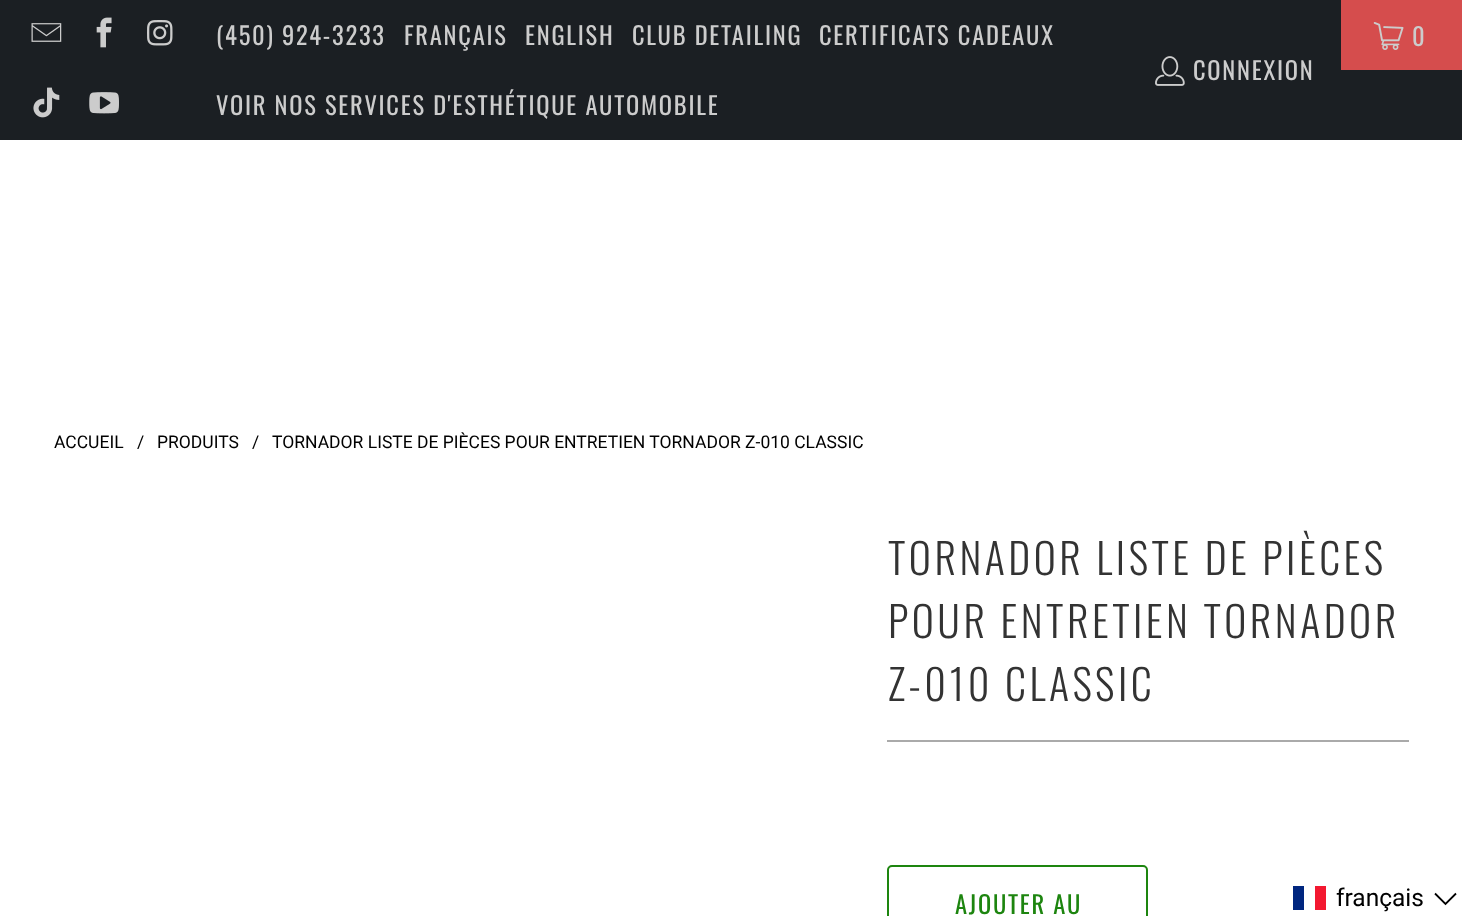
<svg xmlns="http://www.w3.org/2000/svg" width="1462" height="916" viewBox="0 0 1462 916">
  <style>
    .t1 { font: 24.5px Oswald; letter-spacing: 1.75px; fill: #ccc; }
    .t2 { font: 17.5px Roboto; fill: #000; }
    .t3 { font: 300 42px Oswald; letter-spacing: 3.5px; fill: #333; }
    .t4 { font: 24.5px Oswald; letter-spacing: 1.75px; fill: #1d850f; }
    .t5 { font: 24.5px Roboto; fill: #000; }
  </style>
  <rect width="100%" height="100%" fill="#fff"/>
  <rect x="0" y="0" width="1462" height="140" fill="#1b1f23"/>
  <image x="31" y="23" width="31" height="19" href="images/1.png"/>
  <image x="96" y="17" width="16" height="31" href="images/2.png"/>
  <image x="147" y="20" width="26" height="26" href="images/3.png"/>
  <image x="33" y="87" width="27" height="31" href="images/4.png"/>
  <image x="89" y="92" width="30" height="22" href="images/5.png"/>
  <text x="216" y="45" class="t1">(450) 924-3233</text>
  <text x="404" y="45" class="t1">FRANÇAIS</text>
  <text x="525" y="45" class="t1">ENGLISH</text>
  <text x="632" y="45" class="t1">CLUB DETAILING</text>
  <text x="819" y="45" class="t1">CERTIFICATS CADEAUX</text>
  <text x="216" y="115" class="t1">VOIR NOS SERVICES D'ESTHÉTIQUE AUTOMOBILE</text>
  <rect x="1341" y="0" width="121" height="70" fill="#d54d4d"/>
  <image x="1373" y="22" width="31" height="28" href="images/6.png"/>
  <text x="1412" y="46" class="t1">0</text>
  <image x="1155" y="56" width="30" height="30" href="images/7.png"/>
  <text x="1193" y="80" class="t1">CONNEXION</text>
  <text x="54" y="448" class="t2">ACCUEIL</text>
  <text x="137" y="448" class="t2">/</text>
  <text x="157" y="448" class="t2">PRODUITS</text>
  <text x="252" y="448" class="t2">/</text>
  <text x="272" y="448" class="t2">TORNADOR LISTE DE PIÈCES POUR ENTRETIEN TORNADOR Z-010 CLASSIC</text>
  <text x="888" y="575" class="t3">TORNADOR LISTE DE PIÈCES</text>
  <text x="888" y="638" class="t3">POUR ENTRETIEN TORNADOR</text>
  <text x="888" y="701" class="t3">Z-010 CLASSIC</text>
  <rect x="887" y="740" width="522" height="2" fill="#aaa"/>
  <rect x="888" y="866" width="259" height="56" rx="4" fill="none" stroke="#1d850f" stroke-width="2"/>
  <text x="955" y="914" class="t4">AJOUTER AU</text>
  <rect x="1293" y="886" width="11" height="24" fill="#00267f"/>
  <rect x="1315" y="886" width="11" height="24" fill="#f31830"/>
  <text x="1336" y="906" class="t5">français</text>
  <path d="M1435 893.5L1445.5 904L1456 893.5" fill="none" stroke="#000" stroke-width="1.8"/>
</svg>
